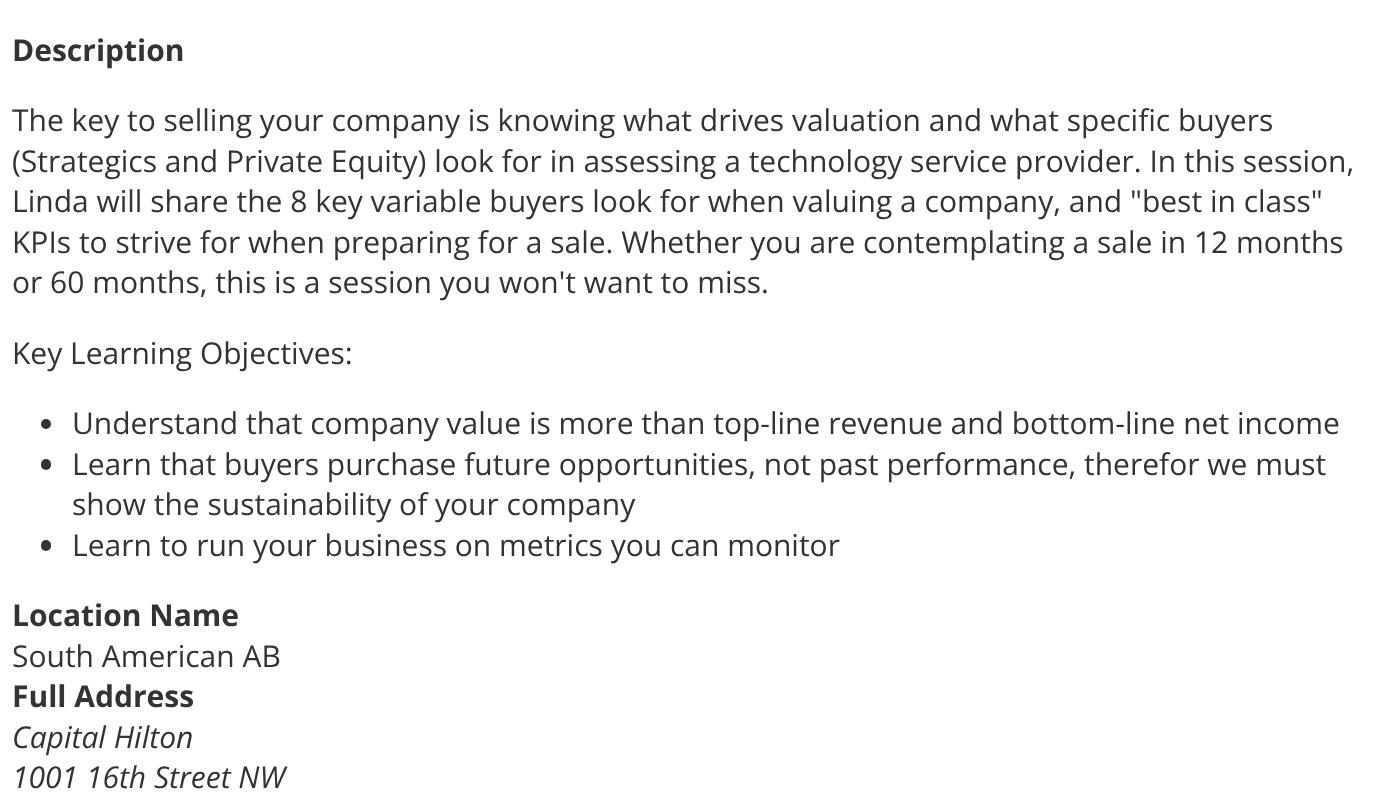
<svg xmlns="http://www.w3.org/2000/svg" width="1374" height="795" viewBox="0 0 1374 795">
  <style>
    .t1 { font: bold 30px Open Sans; fill: #333; }
    .t2 { font: 30px Open Sans; fill: #333; }
    .t3 { font: italic 30px Open Sans; fill: #333; }
  </style>
  <rect width="100%" height="100%" fill="#fff"/>
  <text x="12" y="61" class="t1">Description</text>
  <text x="12" y="131" class="t2">The key to selling your company is knowing what drives valuation and what specific buyers</text>
  <text x="12" y="172" class="t2">(Strategics and Private Equity) look for in assessing a technology service provider. In this session,</text>
  <text x="12" y="212" class="t2">Linda will share the 8 key variable buyers look for when valuing a company, and "best in class"</text>
  <text x="12" y="253" class="t2">KPIs to strive for when preparing for a sale. Whether you are contemplating a sale in 12 months</text>
  <text x="12" y="293" class="t2">or 60 months, this is a session you won't want to miss.</text>
  <text x="12" y="364" class="t2">Key Learning Objectives:</text>
  <circle cx="46" cy="424" r="5" fill="#333"/>
  <text x="72" y="434" class="t2">Understand that company value is more than top-line revenue and bottom-line net income</text>
  <rect x="41" y="459" width="10" height="11" rx="5" fill="#333"/>
  <text x="72" y="475" class="t2">Learn that buyers purchase future opportunities, not past performance, therefor we must</text>
  <text x="72" y="515" class="t2">show the sustainability of your company</text>
  <rect x="41" y="540" width="10" height="11" rx="5" fill="#333"/>
  <text x="72" y="556" class="t2">Learn to run your business on metrics you can monitor</text>
  <text x="12" y="626" class="t1">Location Name</text>
  <text x="12" y="667" class="t2">South American AB</text>
  <text x="12" y="707" class="t1">Full Address</text>
  <text x="12" y="748" class="t3">Capital Hilton</text>
  <text x="12" y="788" class="t3">1001 16th Street NW</text>
</svg>
